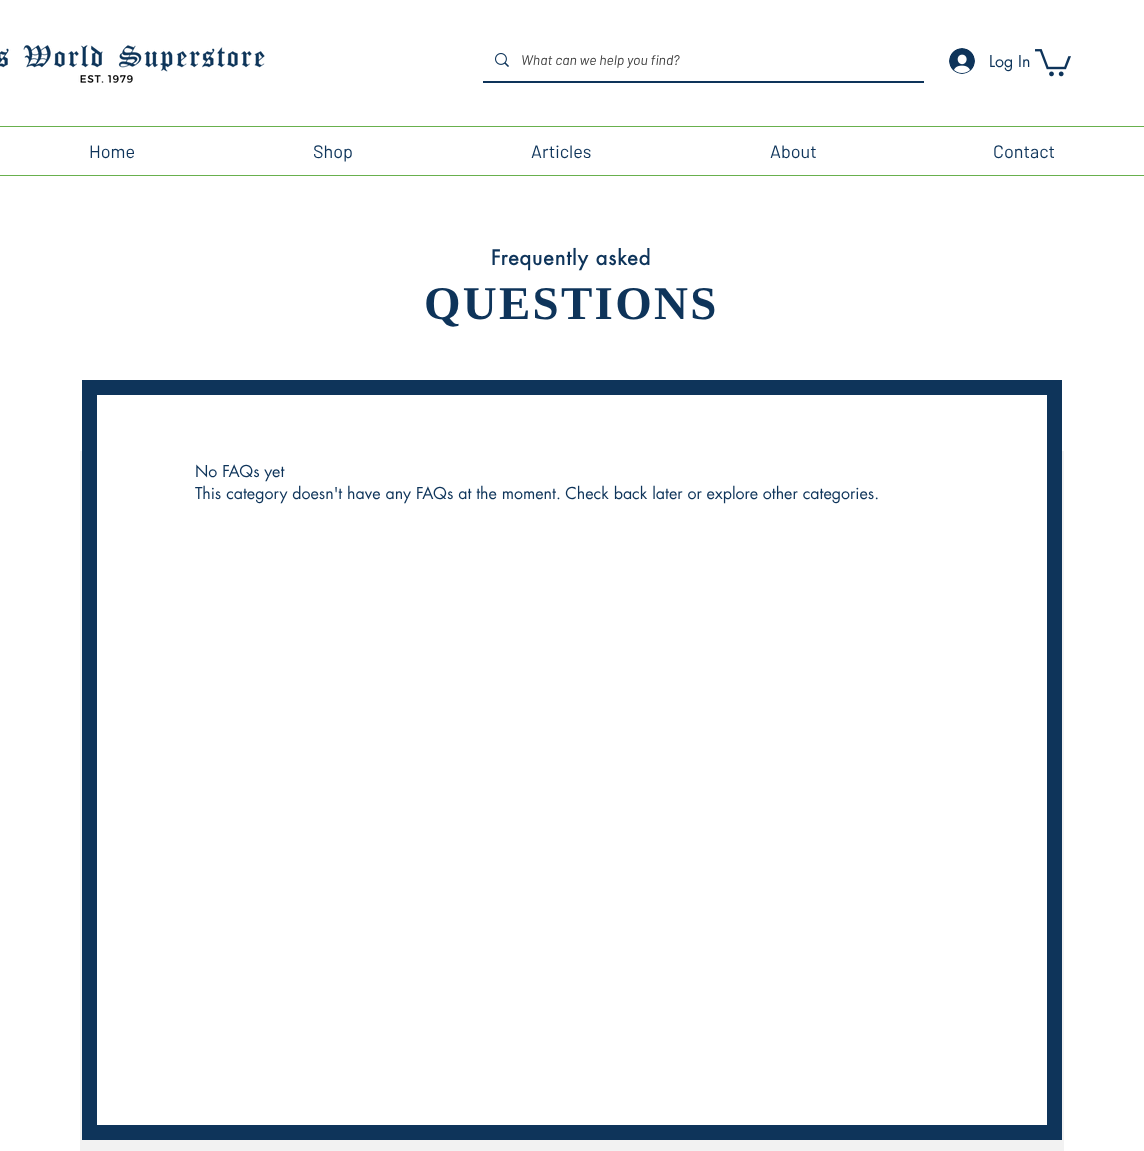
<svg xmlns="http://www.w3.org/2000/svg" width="1144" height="1151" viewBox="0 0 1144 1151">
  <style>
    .t1 { font: italic 14px Barlow; fill: #414141; }
    .t2 { font: 16px futura; fill: #0e345a; }
    .t3 { font: 18px Barlow; fill: #0e345a; }
    .t4 { font: bold 20px futura; letter-spacing: 1px; fill: #0e345a; }
    .t5 { font: bold 47px Liberation Serif; letter-spacing: 2.25px; fill: #0e345a; }
  </style>
  <rect width="100%" height="100%" fill="#fff"/>
  <rect x="483" y="81" width="441" height="2" fill="#0e345a"/>
  <image x="495" y="53" width="14" height="14" href="images/1.png"/>
  <text x="521" y="65" class="t1">What can we help you find?</text>
  <image x="949" y="48" width="26" height="26" href="images/2.png"/>
  <text x="989" y="67" class="t2">Log In</text>
  <image x="1035" y="49" width="36" height="28" href="images/3.png"/>
  <image x="0" y="45" width="265" height="38" href="images/4.png"/>
  <rect x="0" y="126" width="1144" height="1" fill="#68b04d"/>
  <rect x="0" y="175" width="1144" height="1" fill="#68b04d"/>
  <text x="89" y="158" class="t3">Home</text>
  <text x="313" y="158" class="t3">Shop</text>
  <text x="531" y="158" class="t3">Articles</text>
  <text x="770" y="158" class="t3">About</text>
  <text x="993" y="158" class="t3">Contact</text>
  <text x="491" y="265" class="t4">Frequently asked</text>
  <text x="424" y="319" class="t5">QUESTIONS</text>
  <rect x="80" y="451" width="984" height="700" fill="#f2f2f2"/>
  <rect x="97" y="451" width="950" height="674" fill="#fff"/>
  <rect x="89.5" y="387.5" width="965" height="745" fill="none" stroke="#0e345a" stroke-width="15"/>
  <text x="195" y="477" class="t2">No FAQs yet</text>
  <text x="195" y="499" class="t2">This category doesn't have any FAQs at the moment. Check back later or explore other categories.</text>
</svg>
